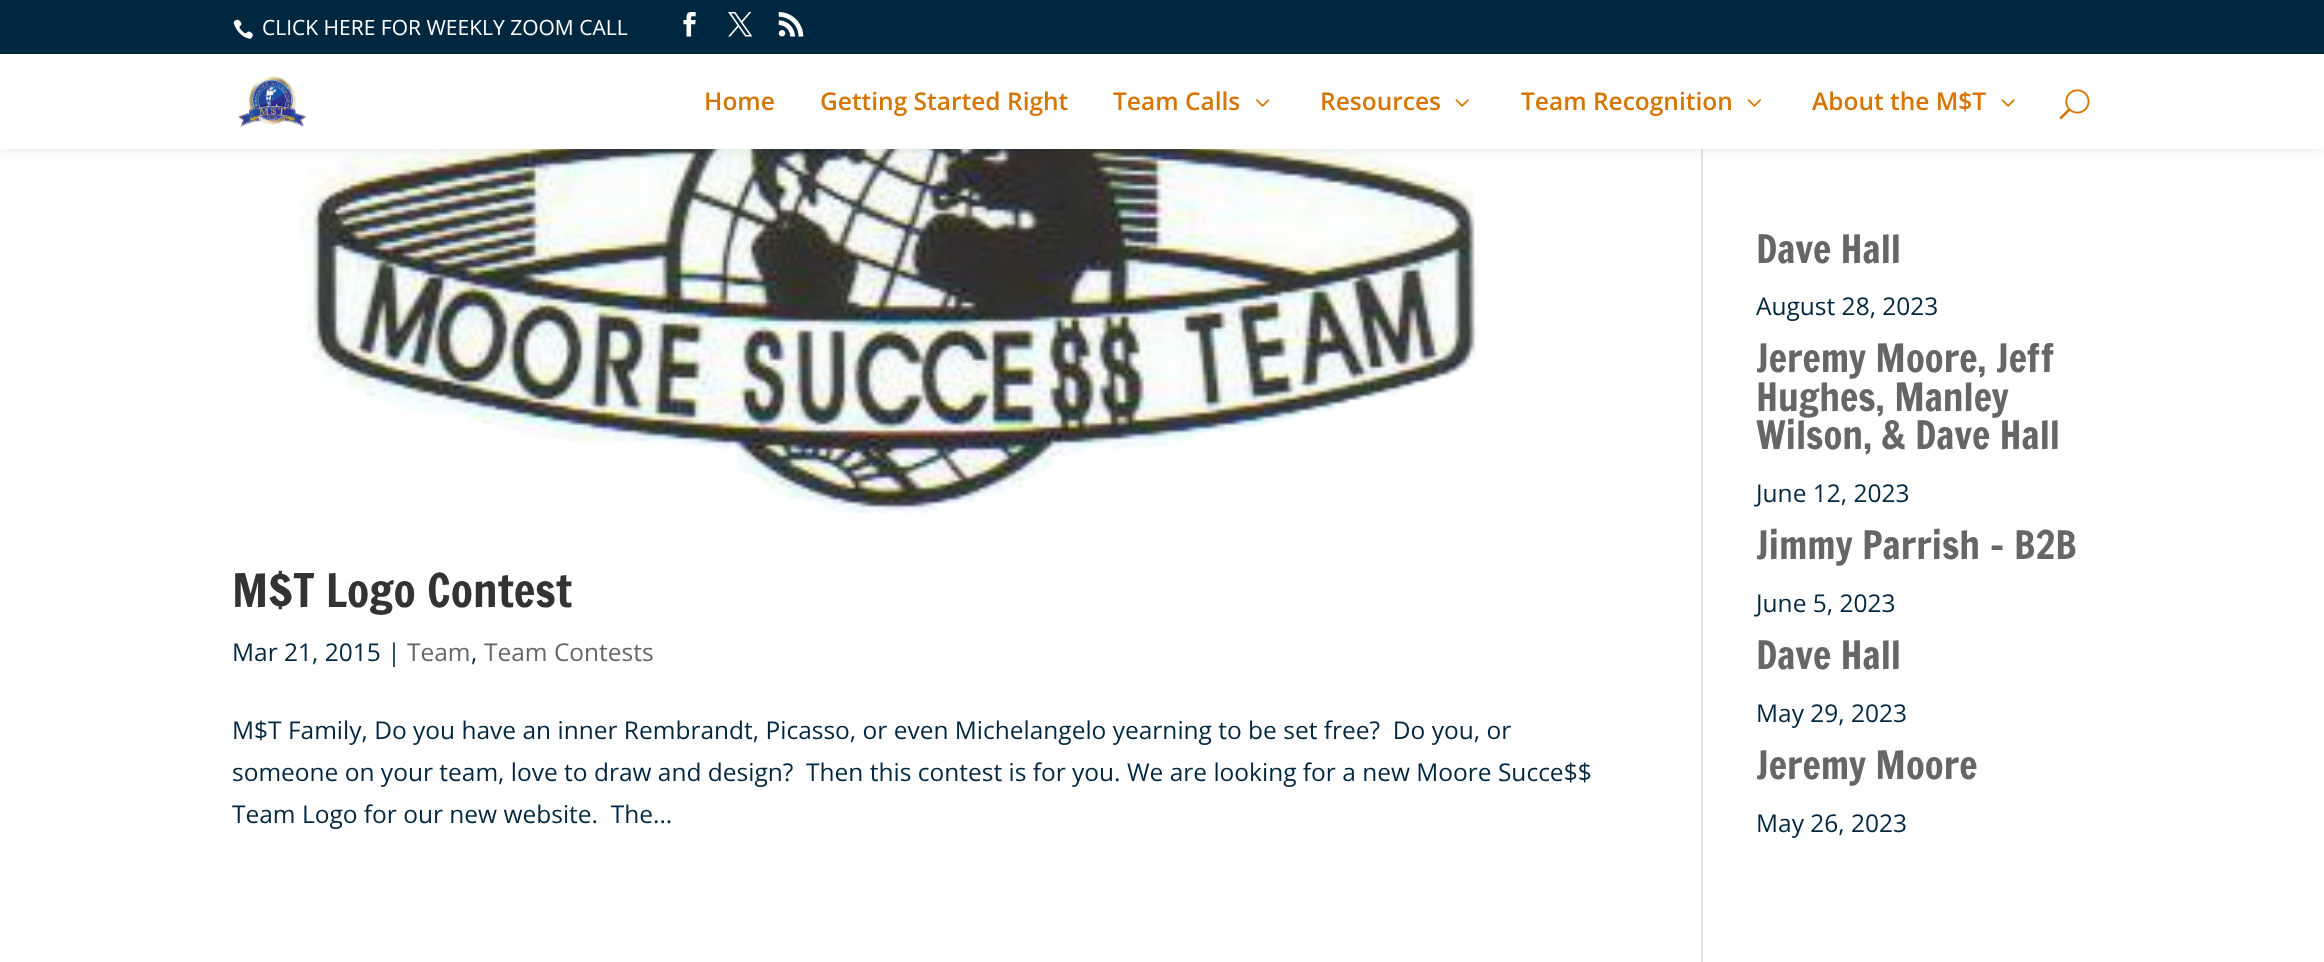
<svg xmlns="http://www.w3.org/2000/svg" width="2324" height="962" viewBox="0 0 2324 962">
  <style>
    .t1 { font: 21px Open Sans; fill: #fff; }
    .t2 { font: 600 24.5px Open Sans; fill: #d67500; }
    .t3 { font: 45.5px Francois One; fill: #333; }
    .t4 { font: 24.5px Open Sans; fill: #002740; }
    .t5 { font: 24.5px Open Sans; fill: #666; }
    .t6 { font: 38.5px Francois One; fill: #666; }
  </style>
  <rect width="100%" height="100%" fill="#fff"/>
  <rect x="1701" y="149" width="2" height="813" fill="#e2e2e2"/>
  <image x="300" y="149" width="1178" height="365" href="images/10.png"/>
  <rect x="0" y="54" width="2324" height="95" fill="#0000001a" filter="blur(6px)"/>
  <rect x="0" y="0" width="2324" height="54" fill="#002740"/>
  <image x="233" y="19" width="20" height="20" href="images/1.png"/>
  <text x="262" y="35" class="t1">CLICK HERE FOR WEEKLY ZOOM CALL</text>
  <image x="683" y="12" width="13" height="25" href="images/2.png"/>
  <image x="728" y="12" width="25" height="25" href="images/3.png"/>
  <image x="778" y="12" width="26" height="25" href="images/4.png"/>
  <rect x="0" y="54" width="2324" height="95" fill="#fff"/>
  <image x="238" y="76" width="68" height="51" href="images/5.png"/>
  <text x="704" y="110" class="t2">Home</text>
  <text x="820" y="110" class="t2">Getting Started Right</text>
  <text x="1113" y="110" class="t2">Team Calls</text>
  <image x="1256" y="99" width="14" height="8" href="images/6.png"/>
  <text x="1320" y="110" class="t2">Resources</text>
  <image x="1455" y="99" width="14" height="8" href="images/7.png"/>
  <text x="1521" y="110" class="t2">Team Recognition</text>
  <image x="1747" y="99" width="14" height="8" href="images/8.png"/>
  <text x="1812" y="110" class="t2">About the M$T</text>
  <image x="2001" y="99" width="14" height="8" href="images/7.png"/>
  <image x="2059" y="89" width="31" height="31" href="images/9.png"/>
  <text x="232" y="607" class="t3">M$T Logo Contest</text>
  <text x="232" y="661" class="t4">Mar 21, 2015 |</text>
  <text x="407" y="661" class="t5">Team</text>
  <text x="471" y="661" class="t4">,</text>
  <text x="484" y="661" class="t5">Team Contests</text>
  <text x="232" y="739" class="t4" xml:space="preserve">M$T Family, Do you have an inner Rembrandt, Picasso, or even Michelangelo yearning to be set free?  Do you, or</text>
  <text x="232" y="781" class="t4" xml:space="preserve">someone on your team, love to draw and design?  Then this contest is for you. We are looking for a new Moore Succe$$</text>
  <text x="232" y="823" class="t4" xml:space="preserve">Team Logo for our new website.  The...</text>
  <text x="1756" y="263" class="t6">Dave Hall</text>
  <text x="1756" y="315" class="t4">August 28, 2023</text>
  <text x="1756" y="372" class="t6">Jeremy Moore, Jeff</text>
  <text x="1756" y="411" class="t6">Hughes, Manley</text>
  <text x="1756" y="449" class="t6">Wilson, &amp; Dave Hall</text>
  <text x="1756" y="502" class="t4">June 12, 2023</text>
  <text x="1756" y="559" class="t6">Jimmy Parrish – B2B</text>
  <text x="1756" y="612" class="t4">June 5, 2023</text>
  <text x="1756" y="669" class="t6">Dave Hall</text>
  <text x="1756" y="722" class="t4">May 29, 2023</text>
  <text x="1756" y="779" class="t6">Jeremy Moore</text>
  <text x="1756" y="832" class="t4">May 26, 2023</text>
</svg>
